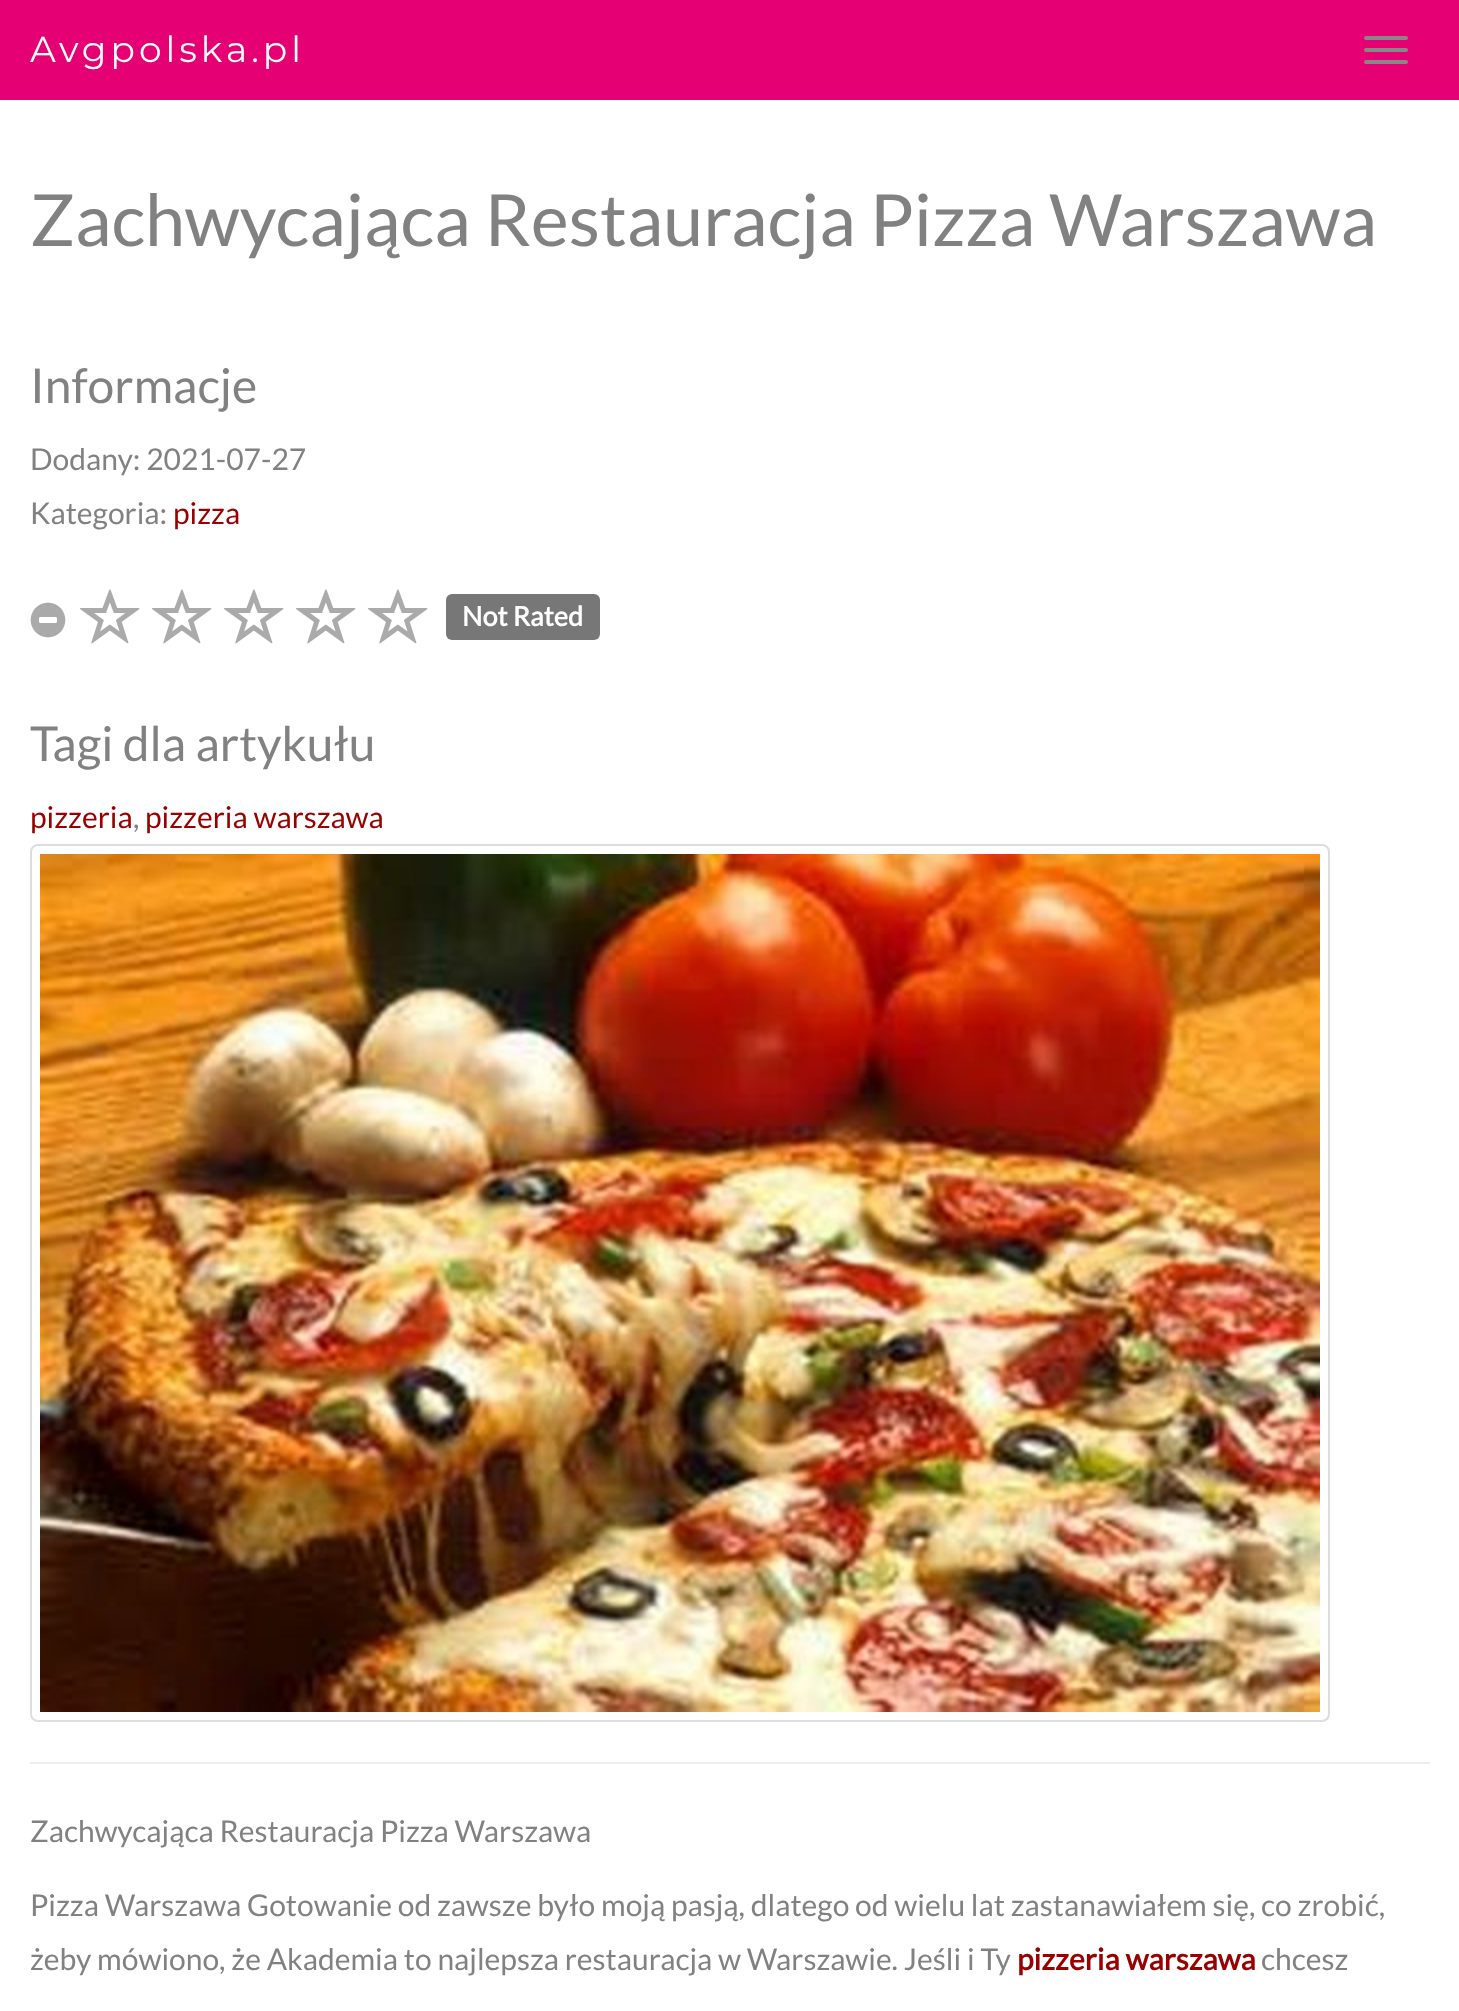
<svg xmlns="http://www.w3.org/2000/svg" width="1459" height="2011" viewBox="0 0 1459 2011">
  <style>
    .t1 { font: 100 36px Montserrat; letter-spacing: 4px; fill: #fff; }
    .t2 { font: 72px Lato; fill: #818181; }
    .t3 { font: 48px Lato; fill: #818181; }
    .t4 { font: 30px Lato; fill: #818181; }
    .t5 { font: 30px Lato; fill: #900; }
    .t6 { font: bold 27px Lato; fill: #fff; }
    .t7 { font: bold 30px Lato; fill: #900; }
  </style>
  <rect width="100%" height="100%" fill="#fff"/>
  <rect x="0" y="0" width="1459" height="100" fill="#e50074"/>
  <text x="30" y="62" class="t1">Avgpolska.pl</text>
  <rect x="1364" y="36" width="44" height="4" rx="2" fill="#888"/>
  <rect x="1364" y="48" width="44" height="4" rx="2" fill="#888"/>
  <rect x="1364" y="60" width="44" height="4" rx="2" fill="#888"/>
  <text x="30" y="246" class="t2">Zachwycająca Restauracja Pizza Warszawa</text>
  <text x="30" y="403" class="t3">Informacje</text>
  <text x="30" y="470" class="t4">Dodany: 2021-07-27</text>
  <text x="30" y="524" class="t4">Kategoria:</text>
  <text x="173" y="524" class="t5">pizza</text>
  <image x="30" y="602" width="36" height="36" href="images/1.png"/>
  <image x="80" y="589" width="60" height="55" href="images/2.png"/>
  <image x="152" y="589" width="60" height="55" href="images/2.png"/>
  <image x="224" y="589" width="60" height="55" href="images/2.png"/>
  <image x="296" y="589" width="60" height="55" href="images/2.png"/>
  <image x="368" y="589" width="60" height="55" href="images/2.png"/>
  <rect x="446" y="594" width="154" height="46" rx="6" fill="#777"/>
  <text x="462" y="626" class="t6">Not Rated</text>
  <text x="30" y="761" class="t3">Tagi dla artykułu</text>
  <text x="30" y="828" class="t5">pizzeria</text>
  <text x="133" y="828" class="t4">,</text>
  <text x="145" y="828" class="t5">pizzeria warszawa</text>
  <rect x="31" y="845" width="1298" height="876" rx="7" fill="none" stroke="#ddd" stroke-width="2"/>
  <image x="40" y="854" width="1280" height="858" href="images/3.png"/>
  <rect x="30" y="1762" width="1400" height="2" fill="#eee"/>
  <text x="30" y="1842" class="t4">Zachwycająca Restauracja Pizza Warszawa</text>
  <text x="30" y="1916" class="t4">Pizza Warszawa Gotowanie od zawsze było moją pasją, dlatego od wielu lat zastanawiałem się, co zrobić,</text>
  <text x="30" y="1970" class="t4">żeby mówiono, że Akademia to najlepsza restauracja w Warszawie. Jeśli i Ty</text>
  <text x="1017" y="1970" class="t7">pizzeria warszawa</text>
  <text x="1261" y="1970" class="t4">chcesz</text>
</svg>
